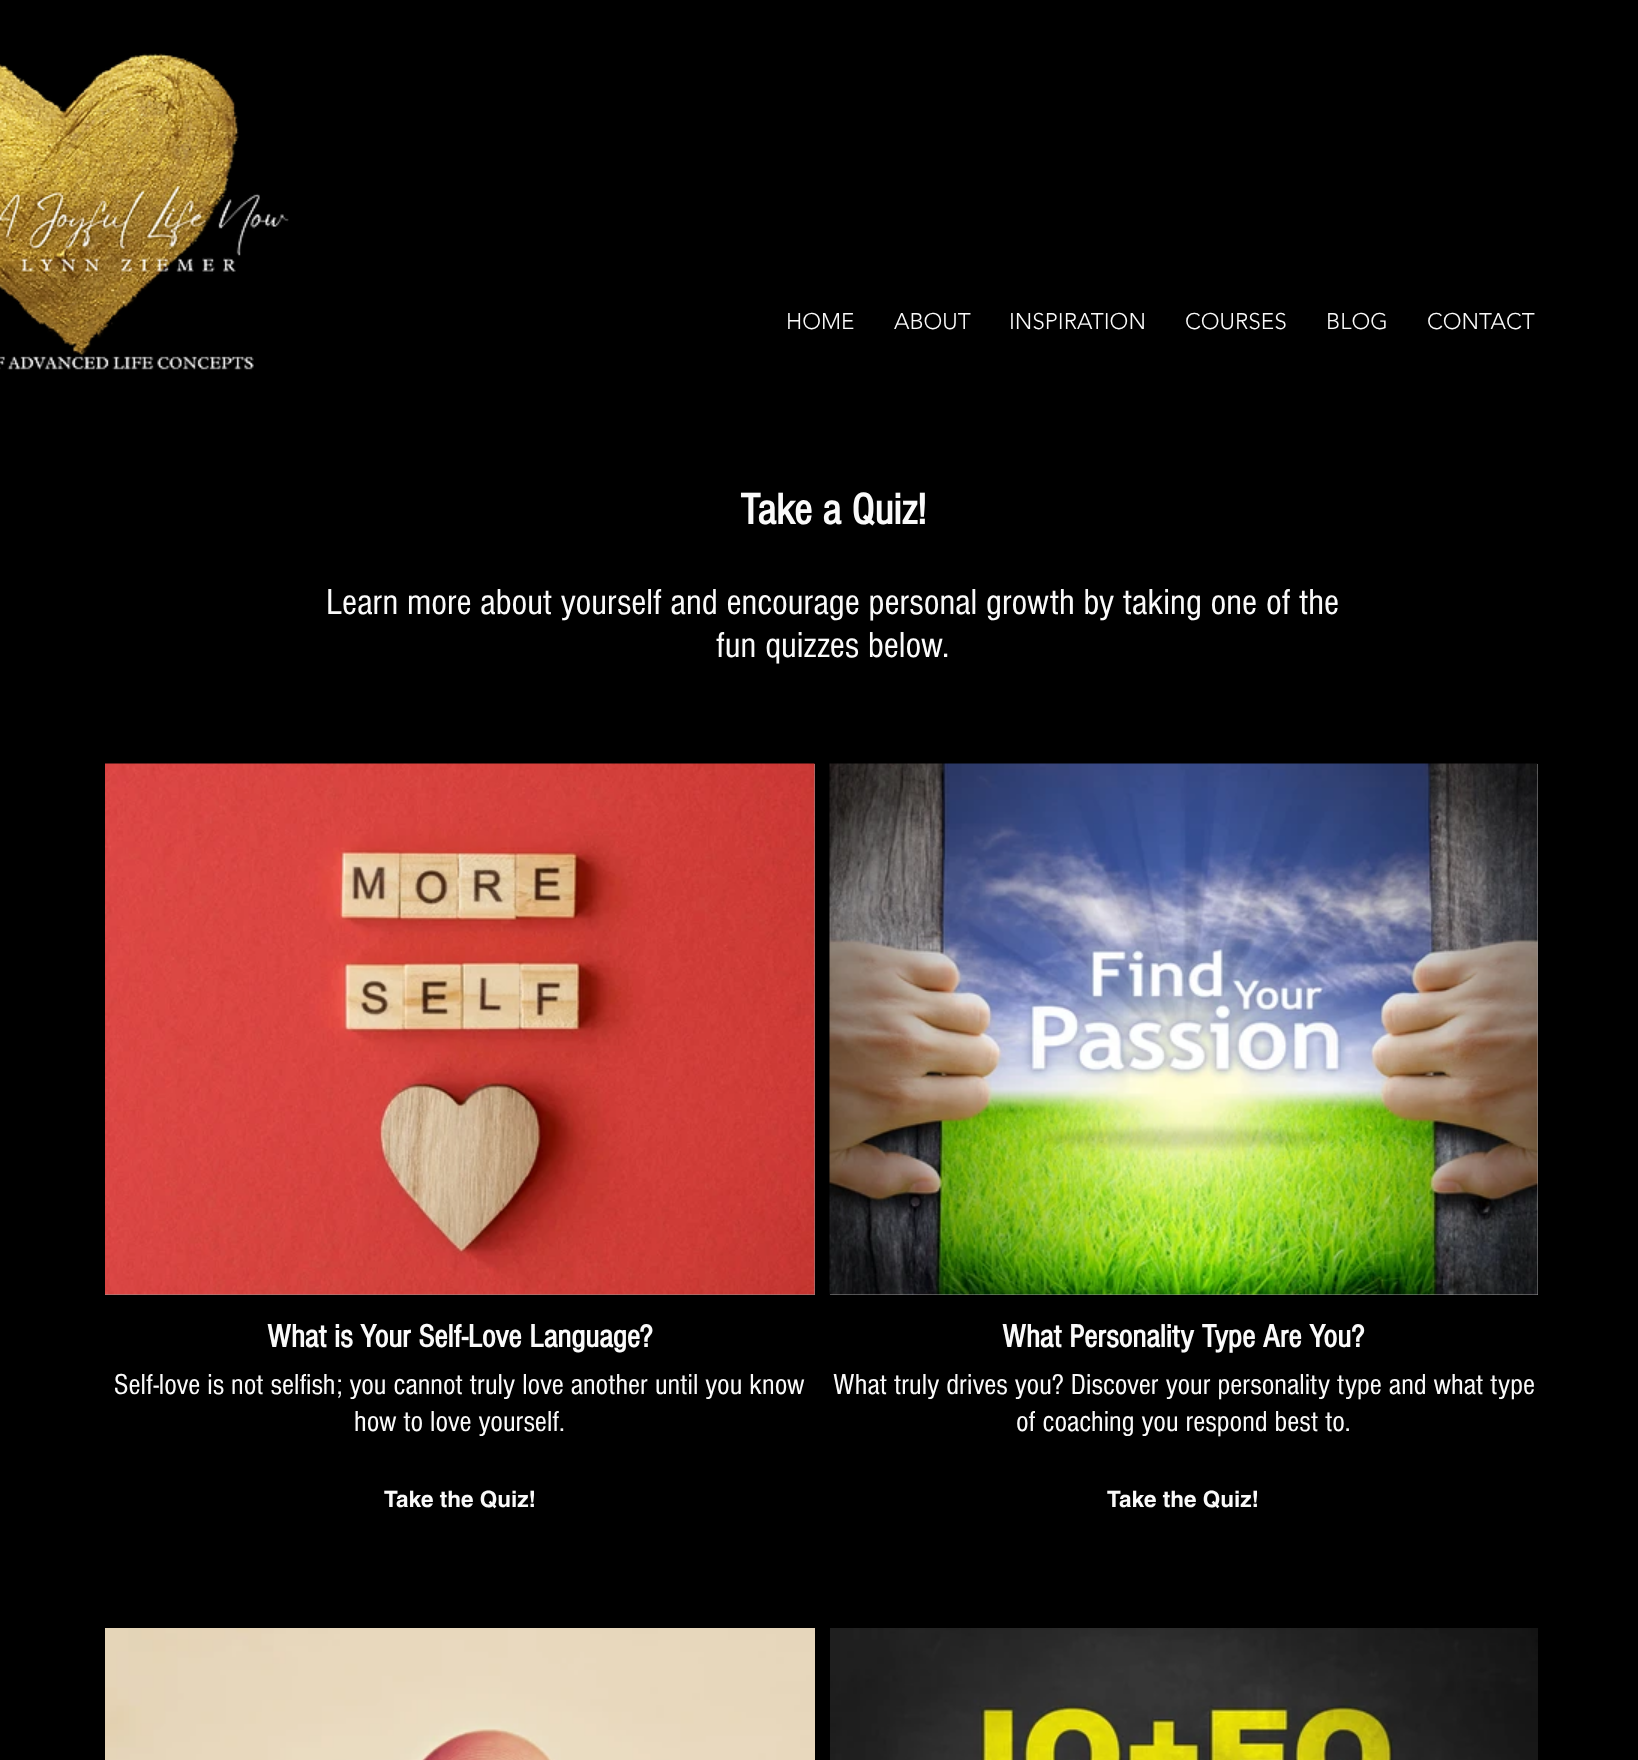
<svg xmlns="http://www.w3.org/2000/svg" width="1638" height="1760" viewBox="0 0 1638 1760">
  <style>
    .t1 { font: 300 22.5px 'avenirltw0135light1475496'; fill: #fafafa; }
    .t2 { font: bold 45px 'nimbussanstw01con'; fill: #fafafa; }
    .t3 { font: 37.5px 'nimbussanstw01con'; fill: #fafafa; }
    .t4 { font: bold 33px 'nimbussanstw01con'; fill: #fafafa; }
    .t5 { font: 30px 'nimbussanstw01con'; fill: #fafafa; }
    .t6 { font: bold 22.5px helvetica; fill: #fafafa; }
  </style>
  <rect width="100%" height="100%" fill="#000"/>
  <image x="0" y="53" width="289" height="317" href="images/1.png"/>
  <text x="786" y="329" class="t1">HOME</text>
  <text x="894" y="329" class="t1">ABOUT</text>
  <text x="1009" y="329" class="t1">INSPIRATION</text>
  <text x="1185" y="329" class="t1">COURSES</text>
  <text x="1326" y="329" class="t1">BLOG</text>
  <text x="1427" y="329" class="t1">CONTACT</text>
  <text x="740" y="524" class="t2">Take a Quiz!</text>
  <text x="326" y="614" class="t3">Learn more about yourself and encourage personal growth by taking one of the</text>
  <text x="716" y="657" class="t3">fun quizzes below.</text>
  <rect x="105" y="764" width="710" height="531" fill="#989898"/>
  <image x="105" y="763" width="710" height="532" href="images/2.png"/>
  <text x="267" y="1347" class="t4">What is Your Self-Love Language?</text>
  <text x="114" y="1394" class="t5">Self-love is not selfish; you cannot truly love another until you know</text>
  <text x="354" y="1431" class="t5">how to love yourself.</text>
  <text x="384" y="1507" class="t6">Take the Quiz!</text>
  <rect x="830" y="764" width="708" height="531" fill="#989898"/>
  <image x="829" y="763" width="709" height="532" href="images/3.png"/>
  <text x="1002" y="1347" class="t4">What Personality Type Are You?</text>
  <text x="833" y="1394" class="t5">What truly drives you? Discover your personality type and what type</text>
  <text x="1016" y="1431" class="t5">of coaching you respond best to.</text>
  <text x="1107" y="1507" class="t6">Take the Quiz!</text>
  <image x="105" y="1628" width="710" height="132" href="images/4.png"/>
  <image x="830" y="1628" width="708" height="132" href="images/5.png"/>
</svg>
